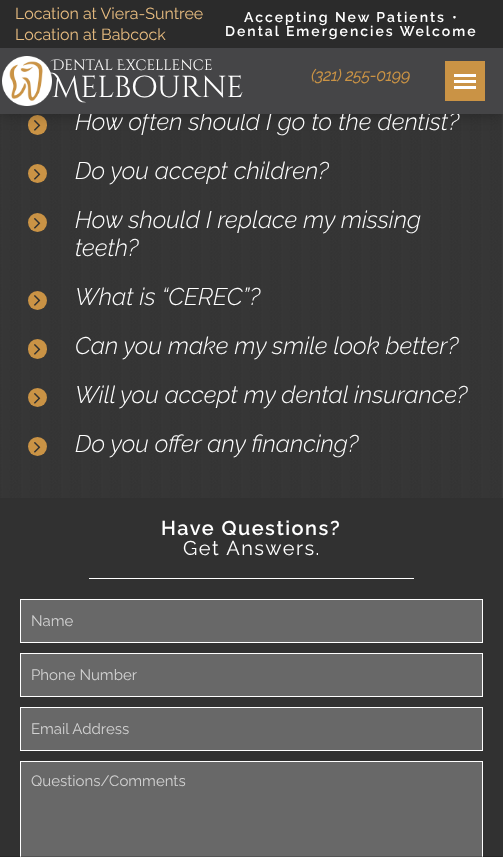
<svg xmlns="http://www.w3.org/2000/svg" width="503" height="857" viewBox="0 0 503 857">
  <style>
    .t1 { font: italic 100 24px Raleway; fill: #fff; }
    .t2 { font: 16px Raleway; fill: #e7bc80; }
    .t3 { font: 600 14px Raleway; letter-spacing: 2px; fill: #fff; }
    .t4 { font: 14px Raleway; letter-spacing: 2px; fill: #fff; }
    .t5 { font: 15px Cinzel Decorative; fill: #fff; }
    .t6 { font: 30.25px Cinzel Decorative; fill: #fff; }
    .t7 { font: italic bold 16px Raleway; fill: #ca9345; }
    .t8 { font: 600 20px Raleway; letter-spacing: 1.5px; fill: #fff; }
    .t9 { font: 20px Raleway; letter-spacing: 1.5px; fill: #fff; }
    .t10 { font: 15px Raleway; fill: #d2d2d2; }
  </style>
  <rect width="100%" height="100%" fill="#3b3b3b"/>
  <image x="0" y="114" width="502" height="384" href="images/1.png"/>
  <rect x="28" y="115" width="19" height="20" rx="9.5" fill="#ca9345"/>
  <image x="34" y="120" width="7" height="11" href="images/3.png"/>
  <rect x="0" y="0" width="503" height="114" fill="#0000004d" filter="blur(7.5px)"/>
  <text x="75" y="130" class="t1">How often should I go to the dentist?</text>
  <rect x="0" y="48" width="503" height="66" fill="#454547"/>
  <rect x="0" y="0" width="503" height="48" fill="#2b2b2b"/>
  <text x="15" y="19" class="t2">Location at Viera-Suntree</text>
  <text x="15" y="40" class="t2">Location at Babcock</text>
  <text x="244" y="22" class="t3">Accepting New Patients</text>
  <text x="452" y="22" class="t4">•</text>
  <text x="225" y="36" class="t3">Dental Emergencies Welcome</text>
  <image x="2" y="56" width="50" height="50" href="images/2.png"/>
  <text x="52" y="70" class="t5">Dental Excellence</text>
  <text x="52" y="97" class="t6">Melbourne</text>
  <text x="311" y="81" class="t7">(321) 255-0199</text>
  <rect x="445" y="61" width="40" height="40" fill="#ca9345"/>
  <rect x="454" y="74" width="22" height="3" fill="#fff"/>
  <rect x="454" y="80" width="22" height="3" fill="#fff"/>
  <rect x="454" y="86" width="22" height="3" fill="#fff"/>
  <circle cx="37.5" cy="173.5" r="9.5" fill="#ca9345"/>
  <image x="34" y="169" width="7" height="11" href="images/4.png"/>
  <text x="75" y="179" class="t1">Do you accept children?</text>
  <circle cx="37.5" cy="222.5" r="9.5" fill="#ca9345"/>
  <image x="34" y="218" width="7" height="11" href="images/5.png"/>
  <text x="75" y="228" class="t1">How should I replace my missing</text>
  <text x="75" y="256" class="t1">teeth?</text>
  <circle cx="37.5" cy="300.5" r="9.5" fill="#ca9345"/>
  <image x="34" y="295" width="7" height="11" href="images/6.png"/>
  <text x="75" y="305" class="t1">What is “CEREC”?</text>
  <rect x="28" y="339" width="19" height="20" rx="9.5" fill="#ca9345"/>
  <image x="34" y="344" width="7" height="11" href="images/7.png"/>
  <text x="75" y="354" class="t1">Can you make my smile look better?</text>
  <circle cx="37.5" cy="397.5" r="9.5" fill="#ca9345"/>
  <image x="34" y="393" width="7" height="11" href="images/8.png"/>
  <text x="75" y="403" class="t1">Will you accept my dental insurance?</text>
  <circle cx="37.5" cy="446.5" r="9.5" fill="#ca9345"/>
  <image x="34" y="442" width="7" height="11" href="images/9.png"/>
  <text x="75" y="452" class="t1">Do you offer any financing?</text>
  <rect x="0" y="498" width="503" height="359" fill="#313131"/>
  <text x="161" y="535" class="t8">Have Questions?</text>
  <text x="183" y="555" class="t9">Get Answers.</text>
  <rect x="89" y="578" width="325" height="1" fill="#fff"/>
  <rect x="20.5" y="599.5" width="462" height="43" fill="#686868" stroke="#fff"/>
  <text x="31" y="626" class="t10">Name</text>
  <rect x="20.5" y="653.5" width="462" height="43" fill="#686868" stroke="#fff"/>
  <text x="31" y="680" class="t10">Phone Number</text>
  <rect x="20.5" y="707.5" width="462" height="43" fill="#686868" stroke="#fff"/>
  <text x="31" y="734" class="t10">Email Address</text>
  <rect x="20.5" y="761.5" width="462" height="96" fill="#686868" stroke="#fff"/>
  <text x="31" y="786" class="t10">Questions/Comments</text>
  <rect x="-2" y="856" width="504" height="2" fill="#00000033" filter="blur(0.5px)"/>
</svg>
